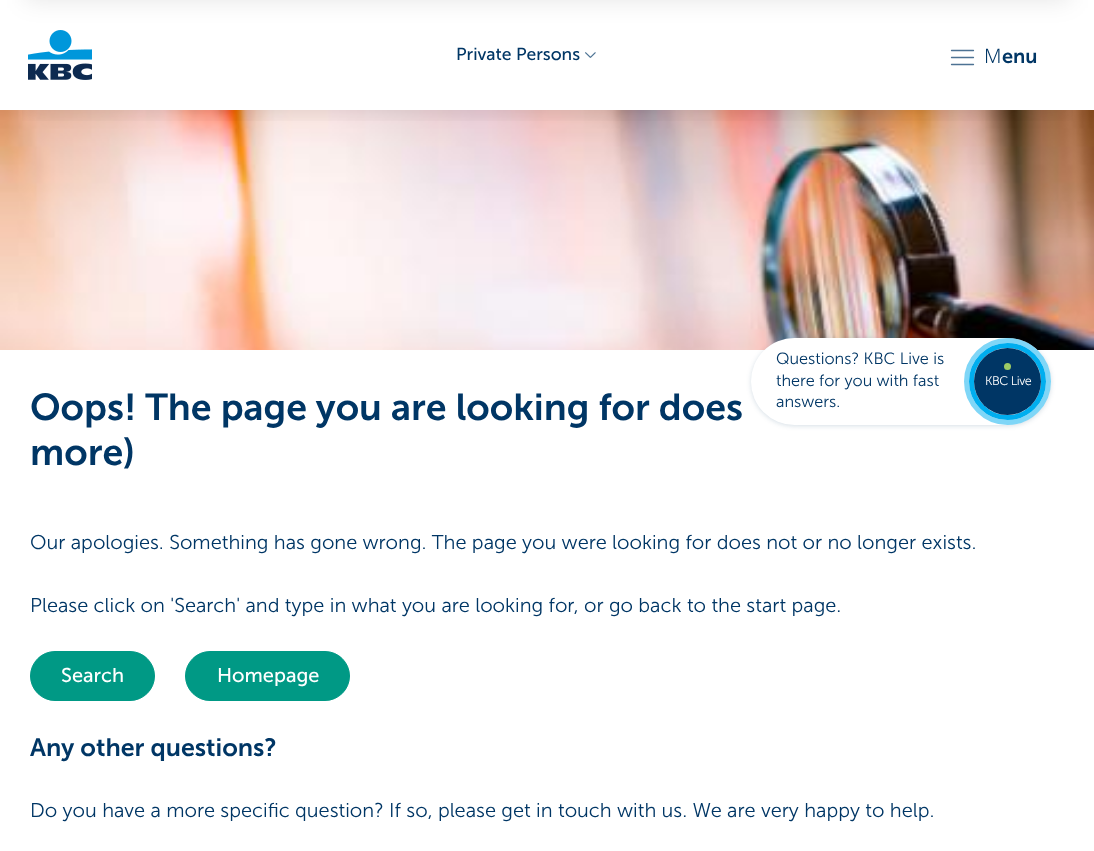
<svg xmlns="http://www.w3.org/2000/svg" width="1094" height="851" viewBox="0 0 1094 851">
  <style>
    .t1 { font: 17.5px Museo Sans; fill: #003665; }
    .t2 { font: 300 20px Noto Sans; fill: #003665; }
    .t3 { font: 600 20px Museo Sans; fill: #003665; }
    .t4 { font: 300 16.25px Museo Sans; fill: #003665; }
    .t5 { font: 300 12.5px Museo Sans; letter-spacing: -0.5px; fill: #fff; }
    .t6 { font: 600 37.5px Museo Sans; fill: #003665; }
    .t7 { font: 300 20px Museo Sans; fill: #003665; }
    .t8 { font: 20px Museo Sans; fill: #fff; }
    .t9 { font: 600 25px Museo Sans; fill: #003665; }
  </style>
  <defs>
    <clipPath id="clip1"><rect x="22" y="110" width="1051" height="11"/></clipPath>
  </defs>
  <rect width="100%" height="100%" fill="#fff"/>
  <rect x="25" y="-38" width="1045" height="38" fill="#0000001a" filter="blur(12.5px)"/>
  <image x="0" y="110" width="1094" height="240" href="images/3.png"/>
  <g clip-path="url(#clip1)">
    <rect x="25" y="50" width="1045" height="60" fill="#0000001a" filter="blur(12.5px)"/>
  </g>
  <image x="28" y="30" width="64" height="50" href="images/1.png"/>
  <text x="456" y="60" class="t1">Private Persons</text>
  <image x="585" y="52" width="11" height="6" href="images/2.png"/>
  <path d="M951.5 57.5H973.5M951.5 50.5H973.5M951.5 64.5H973.5" fill="none" stroke="#4d7293" stroke-width="1.3" stroke-linecap="round" stroke-linejoin="round"/>
  <text x="984" y="63" class="t2">M</text>
  <text x="1002" y="63" class="t3">enu</text>
  <rect x="751" y="339" width="300" height="87" rx="43.5" fill="#00366529" filter="blur(2.5px)"/>
  <rect x="751" y="338" width="300" height="87" rx="43.5" fill="#fff"/>
  <text x="776" y="364" class="t4">Questions? KBC Live is</text>
  <text x="776" y="386" class="t4">there for you with fast</text>
  <text x="776" y="407" class="t4">answers.</text>
  <circle cx="1007.5" cy="381.5" r="36" fill="none" stroke="#00aeef" stroke-width="5"/>
  <circle cx="1007.5" cy="381.5" r="41" fill="none" stroke="#00aeef80" stroke-width="5"/>
  <circle cx="1007.5" cy="381.5" r="33.5" fill="#003665"/>
  <circle cx="1007.5" cy="366.5" r="3.5" fill="#9ccb65"/>
  <text x="985" y="385" class="t5">KBC Live</text>
  <text x="30" y="420" class="t6">Oops! The page you are looking for does</text>
  <text x="30" y="465" class="t6">more)</text>
  <text x="30" y="549" class="t7">Our apologies. Something has gone wrong. The page you were looking for does not or no longer exists.</text>
  <text x="30" y="612" class="t7">Please click on 'Search' and type in what you are looking for, or go back to the start page.</text>
  <rect x="30.5" y="651.5" width="124" height="49" rx="24.5" fill="#009985" stroke="#009985"/>
  <text x="61" y="682" class="t8">Search</text>
  <rect x="185.5" y="651.5" width="164" height="49" rx="24.5" fill="#009985" stroke="#009985"/>
  <text x="217" y="682" class="t8">Homepage</text>
  <text x="30" y="756" class="t9">Any other questions?</text>
  <text x="30" y="817" class="t7">Do you have a more specific question? If so, please get in touch with us. We are very happy to help.</text>
</svg>
